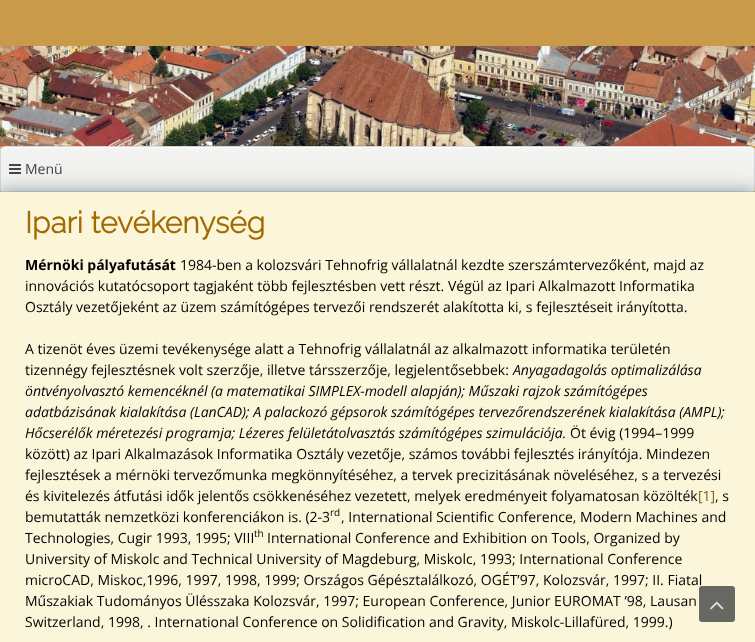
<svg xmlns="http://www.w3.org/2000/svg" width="755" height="642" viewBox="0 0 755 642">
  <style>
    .t1 { font: 14px Open Sans; fill: #444; }
    .t2 { font: bold 30px Raleway; fill: #a36a00; }
    .t3 { font: bold 14px Open Sans; fill: #000; }
    .t4 { font: 14px Open Sans; fill: #000; }
    .t5 { font: italic 14px Open Sans; fill: #000; }
    .t6 { font: 14px Open Sans; fill: #7f5e1d; }
    .t7 { font: 10px Open Sans; fill: #000; }
  </style>
  <defs>
    <clipPath id="clip1"><path d="M5 146H750C753 146 755 148 755 151V190C755 191 754 192 753 192H2C1 192 0 191 0 190V151C0 148 2 146 5 146Z"/></clipPath>
    <linearGradient id="g1" gradientUnits="userSpaceOnUse" x1="378" y1="147" x2="378" y2="191"><stop offset="0" stop-color="#f4f4f2"/><stop offset="1" stop-color="#ededeb"/></linearGradient>
  </defs>
  <rect width="100%" height="100%" fill="#c99a4a"/>
  <image x="0" y="46" width="755" height="100" href="images/1.png"/>
  <g clip-path="url(#clip1)">
    <rect x="0" y="147" width="755" height="44" fill="url(#g1)"/>
  </g>
  <path d="M5 148H750C752 148 754 150 754 152V151C754 149 752 147 750 147H5C3 147 1 149 1 151V152C1 150 3 148 5 148Z" fill="#fdfdfc"/>
  <path d="M5 146.5H750C752.5 146.5 754.5 148.5 754.5 151V190C754.5 191 754 191.5 753 191.5H2C1 191.5 .5 191 .5 190V151C.5 148.5 2.5 146.5 5 146.5Z" fill="none" stroke="#d4d4d4"/>
  <rect x="0" y="192" width="755" height="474" fill="#85969f" filter="blur(8px)"/>
  <image x="9" y="164" width="12" height="10" href="images/2.png"/>
  <text x="25" y="174" class="t1">Menü</text>
  <rect x="0" y="192" width="755" height="450" fill="#fbf6d9"/>
  <text x="25" y="233" class="t2">Ipari tevékenység</text>
  <text x="25" y="270" class="t3">Mérnöki pályafutását</text>
  <text x="180" y="270" class="t4">1984-ben a kolozsvári Tehnofrig vállalatnál kezdte szerszámtervezőként, majd az</text>
  <text x="25" y="291" class="t4">innovációs kutatócsoport tagjaként több fejlesztésben vett részt. Végül az Ipari Alkalmazott Informatika</text>
  <text x="25" y="312" class="t4">Osztály vezetőjeként az üzem számítógépes tervezői rendszerét alakította ki, s fejlesztéseit irányította.</text>
  <text x="25" y="354" class="t4">A tizenöt éves üzemi tevékenysége alatt a Tehnofrig vállalatnál az alkalmazott informatika területén</text>
  <text x="25" y="375" class="t4">tizennégy fejlesztésnek volt szerzője, illetve társszerzője, legjelentősebbek:</text>
  <text x="513" y="375" class="t5">Anyagadagolás optimalizálása</text>
  <text x="25" y="396" class="t5">öntvényolvasztó kemencéknél (a matematikai SIMPLEX-modell alapján); Műszaki rajzok számítógépes</text>
  <text x="25" y="417" class="t5">adatbázisának kialakítása (LanCAD); A palackozó gépsorok számítógépes tervezőrendszerének kialakítása (AMPL);</text>
  <text x="25" y="438" class="t5">Hőcserélők méretezési programja; Lézeres felületátolvasztás számítógépes szimulációja.</text>
  <text x="570" y="438" class="t4">Öt évig (1994–1999</text>
  <text x="25" y="459" class="t4">között) az Ipari Alkalmazások Informatika Osztály vezetője, számos további fejlesztés irányítója. Mindezen</text>
  <text x="25" y="480" class="t4">fejlesztések a mérnöki tervezőmunka megkönnyítéséhez, a tervek precizitásának növeléséhez, s a tervezési</text>
  <text x="25" y="501" class="t4">és kivitelezés átfutási idők jelentős csökkenéséhez vezetett, melyek eredményeit folyamatosan közölték</text>
  <text x="698" y="501" class="t6">[1]</text>
  <text x="715" y="501" class="t4">, s</text>
  <text x="25" y="522" class="t4">bemutatták nemzetközi konferenciákon is. (2-3</text>
  <text x="330" y="516" class="t7">rd</text>
  <text x="341" y="522" class="t4">, International Scientific Conference, Modern Machines and</text>
  <text x="25" y="543" class="t4">Technologies, Cugir 1993, 1995; VIII</text>
  <text x="254" y="537" class="t7">th</text>
  <text x="267" y="543" class="t4">International Conference and Exhibition on Tools, Organized by</text>
  <text x="25" y="564" class="t4">University of Miskolc and Technical University of Magdeburg, Miskolc, 1993; International Conference</text>
  <text x="25" y="585" class="t4">microCAD, Miskoc,1996, 1997, 1998, 1999; Országos Gépésztalálkozó, OGÉT’97, Kolozsvár, 1997; II. Fiatal</text>
  <text x="25" y="606" class="t4">Műszakiak Tudományos Ülésszaka Kolozsvár, 1997; European Conference, Junior EUROMAT ’98, Lausan</text>
  <text x="25" y="627" class="t4">Switzerland, 1998, . International Conference on Solidification and Gravity, Miskolc-Lillafüred, 1999.)</text>
  <rect x="699" y="586" width="36" height="36" rx="3" fill="#444545cc"/>
  <image x="710" y="601" width="14" height="9" href="images/3.png"/>
</svg>
